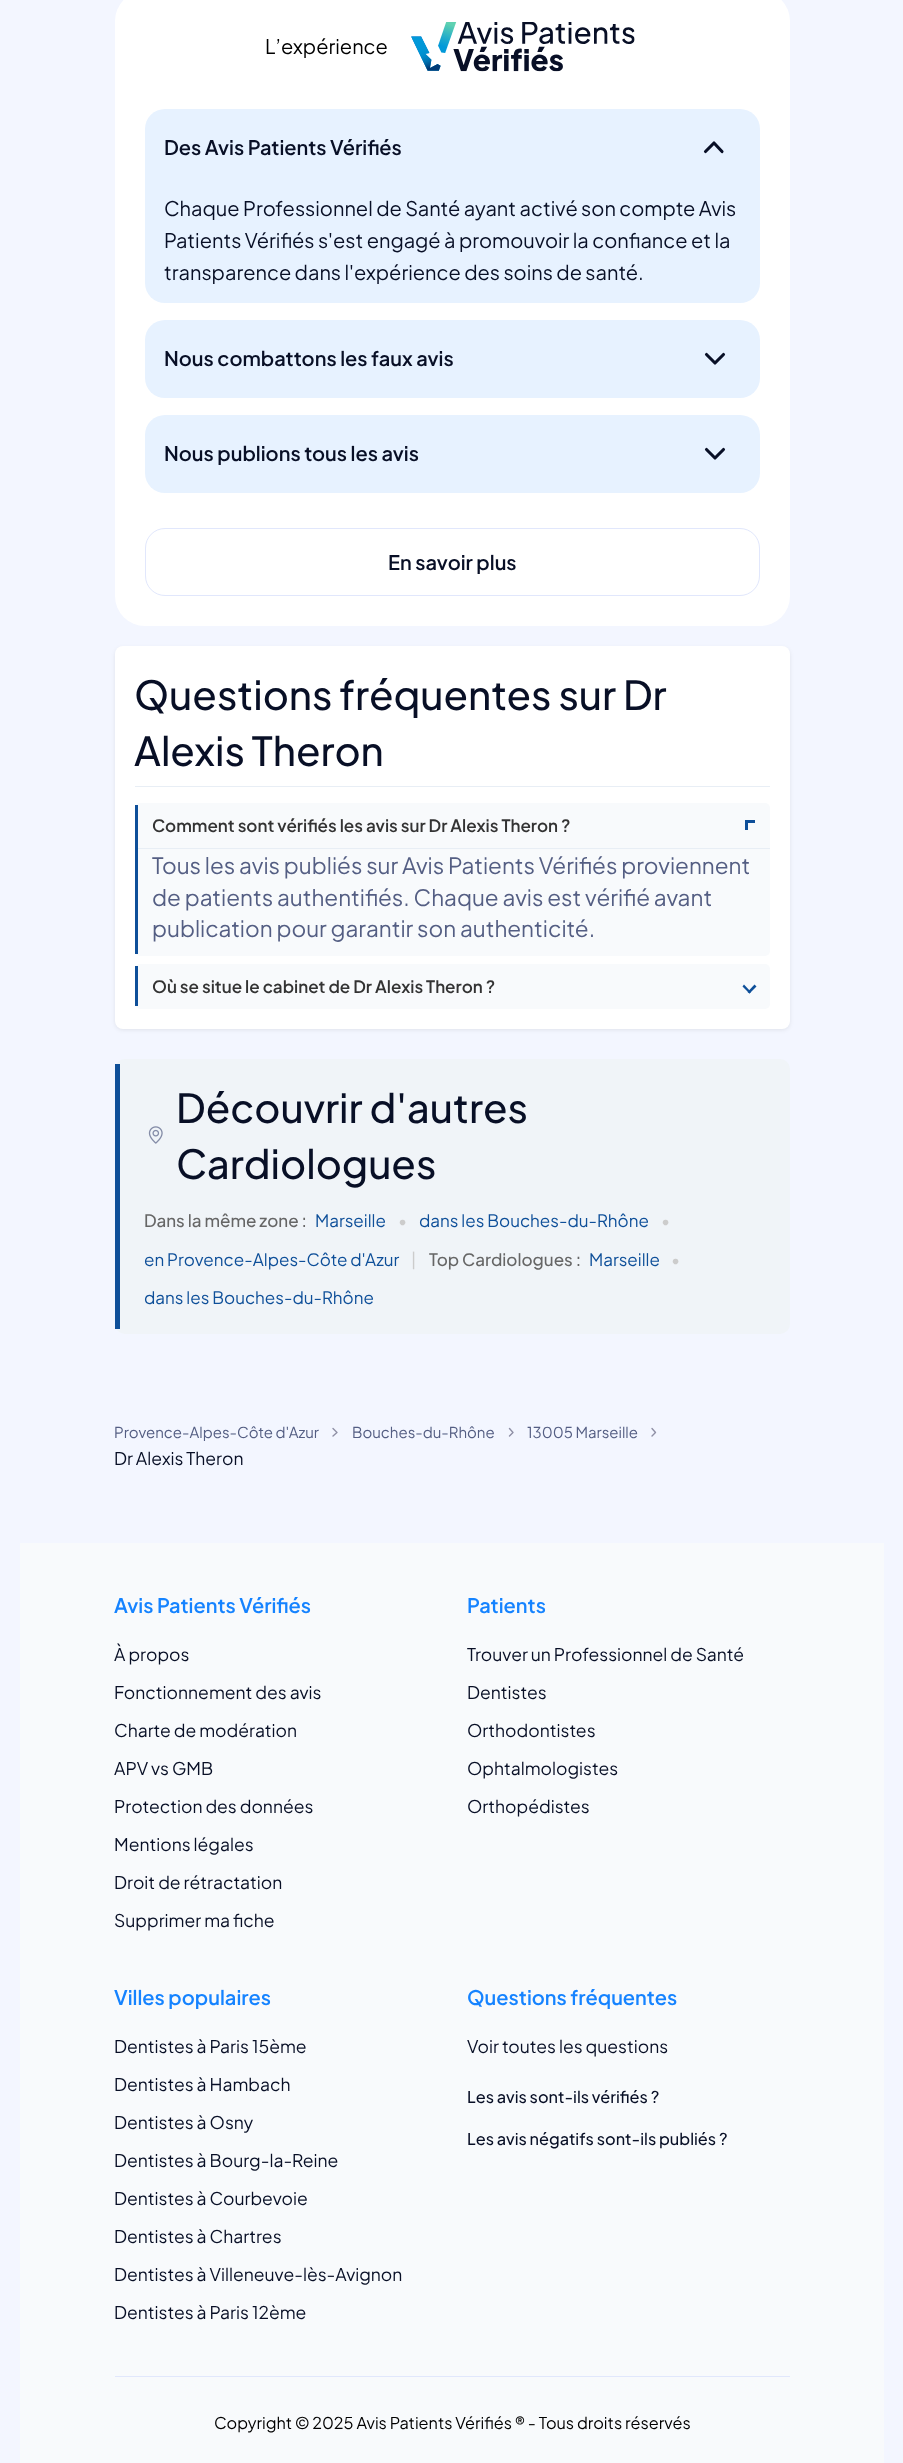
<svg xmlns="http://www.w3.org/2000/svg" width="903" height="2463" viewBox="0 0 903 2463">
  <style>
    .t1 { font: 20px Plus Jakarta Sans; fill: #000; }
    .t2 { font: 600 20px Plus Jakarta Sans; fill: #080f26; }
    .t3 { font: 20px Plus Jakarta Sans; fill: #080f26; }
    .t4 { font: 500 40px Plus Jakarta Sans; fill: #080f26; }
    .t5 { font: 600 17px Plus Jakarta Sans; fill: #333; }
    .t6 { font: 22.5px Plus Jakarta Sans; fill: #545e83; }
    .t7 { font: 500 17px Plus Jakarta Sans; fill: #666; }
    .t8 { font: 17px Plus Jakarta Sans; fill: #0e4f99; }
    .t9 { font: 17px Plus Jakarta Sans; fill: #ccc; }
    .t10 { font: 15px Plus Jakarta Sans; fill: #545e83; }
    .t11 { font: 17.5px Plus Jakarta Sans; fill: #080f26; }
    .t12 { font: 600 20px Plus Jakarta Sans; fill: #1583ff; }
    .t13 { font: 500 16.25px Plus Jakarta Sans; fill: #080f26; }
    .t14 { font: 16.25px Plus Jakarta Sans; fill: #000; }
  </style>
  <rect width="100%" height="100%" fill="#f3f6ff"/>
  <rect x="115" y="-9" width="675" height="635" rx="30" fill="#fff"/>
  <text x="265" y="54" class="t1">L’expérience</text>
  <image x="411" y="22" width="224" height="50" href="images/1.png"/>
  <rect x="145" y="109" width="615" height="194" rx="20" fill="#e7f2ff"/>
  <text x="164" y="155" class="t2">Des Avis Patients Vérifiés</text>
  <path d="M722 151.5L714 143L705.5 151.5" fill="none" stroke="#080f26" stroke-width="3.1" stroke-linecap="round" stroke-linejoin="round"/>
  <text x="164" y="216" class="t3">Chaque Professionnel de Santé ayant activé son compte Avis</text>
  <text x="164" y="248" class="t3">Patients Vérifiés s'est engagé à promouvoir la confiance et la</text>
  <text x="164" y="280" class="t3">transparence dans l'expérience des soins de santé.</text>
  <rect x="145" y="320" width="615" height="78" rx="20" fill="#e7f2ff"/>
  <text x="164" y="366" class="t2">Nous combattons les faux avis</text>
  <path d="M706.5 354.5L715 363L723.5 354.5" fill="none" stroke="#080f26" stroke-width="3.1" stroke-linecap="round" stroke-linejoin="round"/>
  <rect x="145" y="415" width="615" height="78" rx="20" fill="#e7f2ff"/>
  <text x="164" y="461" class="t2">Nous publions tous les avis</text>
  <path d="M706.5 449.5L715 458L723.5 449.5" fill="none" stroke="#080f26" stroke-width="3.1" stroke-linecap="round" stroke-linejoin="round"/>
  <rect x="145.5" y="528.5" width="614" height="67" rx="19.5" fill="none" stroke="#e1e7fc"/>
  <text x="388" y="570" class="t2">En savoir plus</text>
  <rect x="115" y="648" width="675" height="382" rx="8" fill="#00000014" filter="blur(2px)"/>
  <rect x="115" y="646" width="675" height="383" rx="8" fill="#fff"/>
  <rect x="135" y="786" width="635" height="1" fill="#e8eef5"/>
  <text x="134" y="710" class="t4">Questions fréquentes sur Dr</text>
  <text x="134" y="766" class="t4">Alexis Theron</text>
  <rect x="135" y="803" width="635" height="153" rx="5" fill="#f8fafc"/>
  <rect x="135" y="805" width="3" height="149" fill="#0e4f99"/>
  <text x="152" y="832" class="t5">Comment sont vérifiés les avis sur Dr Alexis Theron ?</text>
  <rect x="745" y="820" width="3" height="10" fill="#0e4f99"/>
  <rect x="745" y="820" width="10" height="3" fill="#0e4f99"/>
  <rect x="138" y="848" width="632" height="1" fill="#e8eef5"/>
  <text x="152" y="874" class="t6">Tous les avis publiés sur Avis Patients Vérifiés proviennent</text>
  <text x="152" y="906" class="t6">de patients authentifiés. Chaque avis est vérifié avant</text>
  <text x="152" y="937" class="t6">publication pour garantir son authenticité.</text>
  <rect x="135" y="964" width="635" height="45" rx="5" fill="#f8fafc"/>
  <rect x="135" y="966" width="3" height="40" fill="#0e4f99"/>
  <text x="152" y="993" class="t5">Où se situe le cabinet de Dr Alexis Theron ?</text>
  <path d="M754.5 984.5L756.5 986.5L749.5 993.5L747.5 992Z" fill="#0e4f99"/>
  <path d="M744 984.5L751 992L749.5 993.5L742.5 986.5Z" fill="#0e4f99"/>
  <rect x="115" y="1059" width="675" height="275" rx="10" fill="#f0f4f8"/>
  <rect x="115" y="1064" width="5" height="265" fill="#0e4f99"/>
  <image x="148" y="1126" width="15" height="18" href="images/2.png"/>
  <text x="176" y="1123" class="t4">Découvrir d'autres</text>
  <text x="176" y="1179" class="t4">Cardiologues</text>
  <text x="144" y="1227" class="t7">Dans la même zone :</text>
  <text x="315" y="1227" class="t8">Marseille</text>
  <text x="398" y="1227" class="t9">•</text>
  <text x="419" y="1227" class="t8">dans les Bouches-du-Rhône</text>
  <text x="661" y="1227" class="t9">•</text>
  <text x="144" y="1266" class="t8">en Provence-Alpes-Côte d'Azur</text>
  <text x="411" y="1266" class="t9">|</text>
  <text x="429" y="1266" class="t7">Top Cardiologues :</text>
  <text x="589" y="1266" class="t8">Marseille</text>
  <text x="671" y="1266" class="t9">•</text>
  <text x="144" y="1304" class="t8">dans les Bouches-du-Rhône</text>
  <text x="114" y="1438" class="t10">Provence-Alpes-Côte d'Azur</text>
  <path d="M333 1436L337 1432.5L333 1428.5" fill="none" stroke="#8f90a6" stroke-width="1.4" stroke-linecap="round" stroke-linejoin="round"/>
  <text x="352" y="1438" class="t10">Bouches-du-Rhône</text>
  <path d="M509.5 1436L513 1432.5L509.5 1428.5" fill="none" stroke="#8f90a6" stroke-width="1.4" stroke-linecap="round" stroke-linejoin="round"/>
  <text x="527" y="1438" class="t10">13005 Marseille</text>
  <path d="M652 1436L655.5 1432.5L652 1428.5" fill="none" stroke="#8f90a6" stroke-width="1.4" stroke-linecap="round" stroke-linejoin="round"/>
  <text x="114" y="1465" class="t11">Dr Alexis Theron</text>
  <rect x="20" y="1543" width="864" height="920" fill="#f8fafc"/>
  <rect x="115" y="2376" width="675" height="1" fill="#e1e7fc"/>
  <text x="114" y="1613" class="t12">Avis Patients Vérifiés</text>
  <text x="114" y="1661" class="t11">À propos</text>
  <text x="114" y="1699" class="t11">Fonctionnement des avis</text>
  <text x="114" y="1737" class="t11">Charte de modération</text>
  <text x="114" y="1775" class="t11">APV vs GMB</text>
  <text x="114" y="1813" class="t11">Protection des données</text>
  <text x="114" y="1851" class="t11">Mentions légales</text>
  <text x="114" y="1889" class="t11">Droit de rétractation</text>
  <text x="114" y="1927" class="t11">Supprimer ma fiche</text>
  <text x="467" y="1613" class="t12">Patients</text>
  <text x="467" y="1661" class="t11">Trouver un Professionnel de Santé</text>
  <text x="467" y="1699" class="t11">Dentistes</text>
  <text x="467" y="1737" class="t11">Orthodontistes</text>
  <text x="467" y="1775" class="t11">Ophtalmologistes</text>
  <text x="467" y="1813" class="t11">Orthopédistes</text>
  <text x="114" y="2005" class="t12">Villes populaires</text>
  <text x="114" y="2053" class="t11">Dentistes à Paris 15ème</text>
  <text x="114" y="2091" class="t11">Dentistes à Hambach</text>
  <text x="114" y="2129" class="t11">Dentistes à Osny</text>
  <text x="114" y="2167" class="t11">Dentistes à Bourg-la-Reine</text>
  <text x="114" y="2205" class="t11">Dentistes à Courbevoie</text>
  <text x="114" y="2243" class="t11">Dentistes à Chartres</text>
  <text x="114" y="2281" class="t11">Dentistes à Villeneuve-lès-Avignon</text>
  <text x="114" y="2319" class="t11">Dentistes à Paris 12ème</text>
  <text x="467" y="2005" class="t12">Questions fréquentes</text>
  <text x="467" y="2053" class="t11">Voir toutes les questions</text>
  <text x="467" y="2103" class="t13">Les avis sont-ils vérifiés ?</text>
  <text x="467" y="2145" class="t13">Les avis négatifs sont-ils publiés ?</text>
  <text x="214" y="2429" class="t14">Copyright © 2025 Avis Patients Vérifiés ® - Tous droits réservés</text>
</svg>
